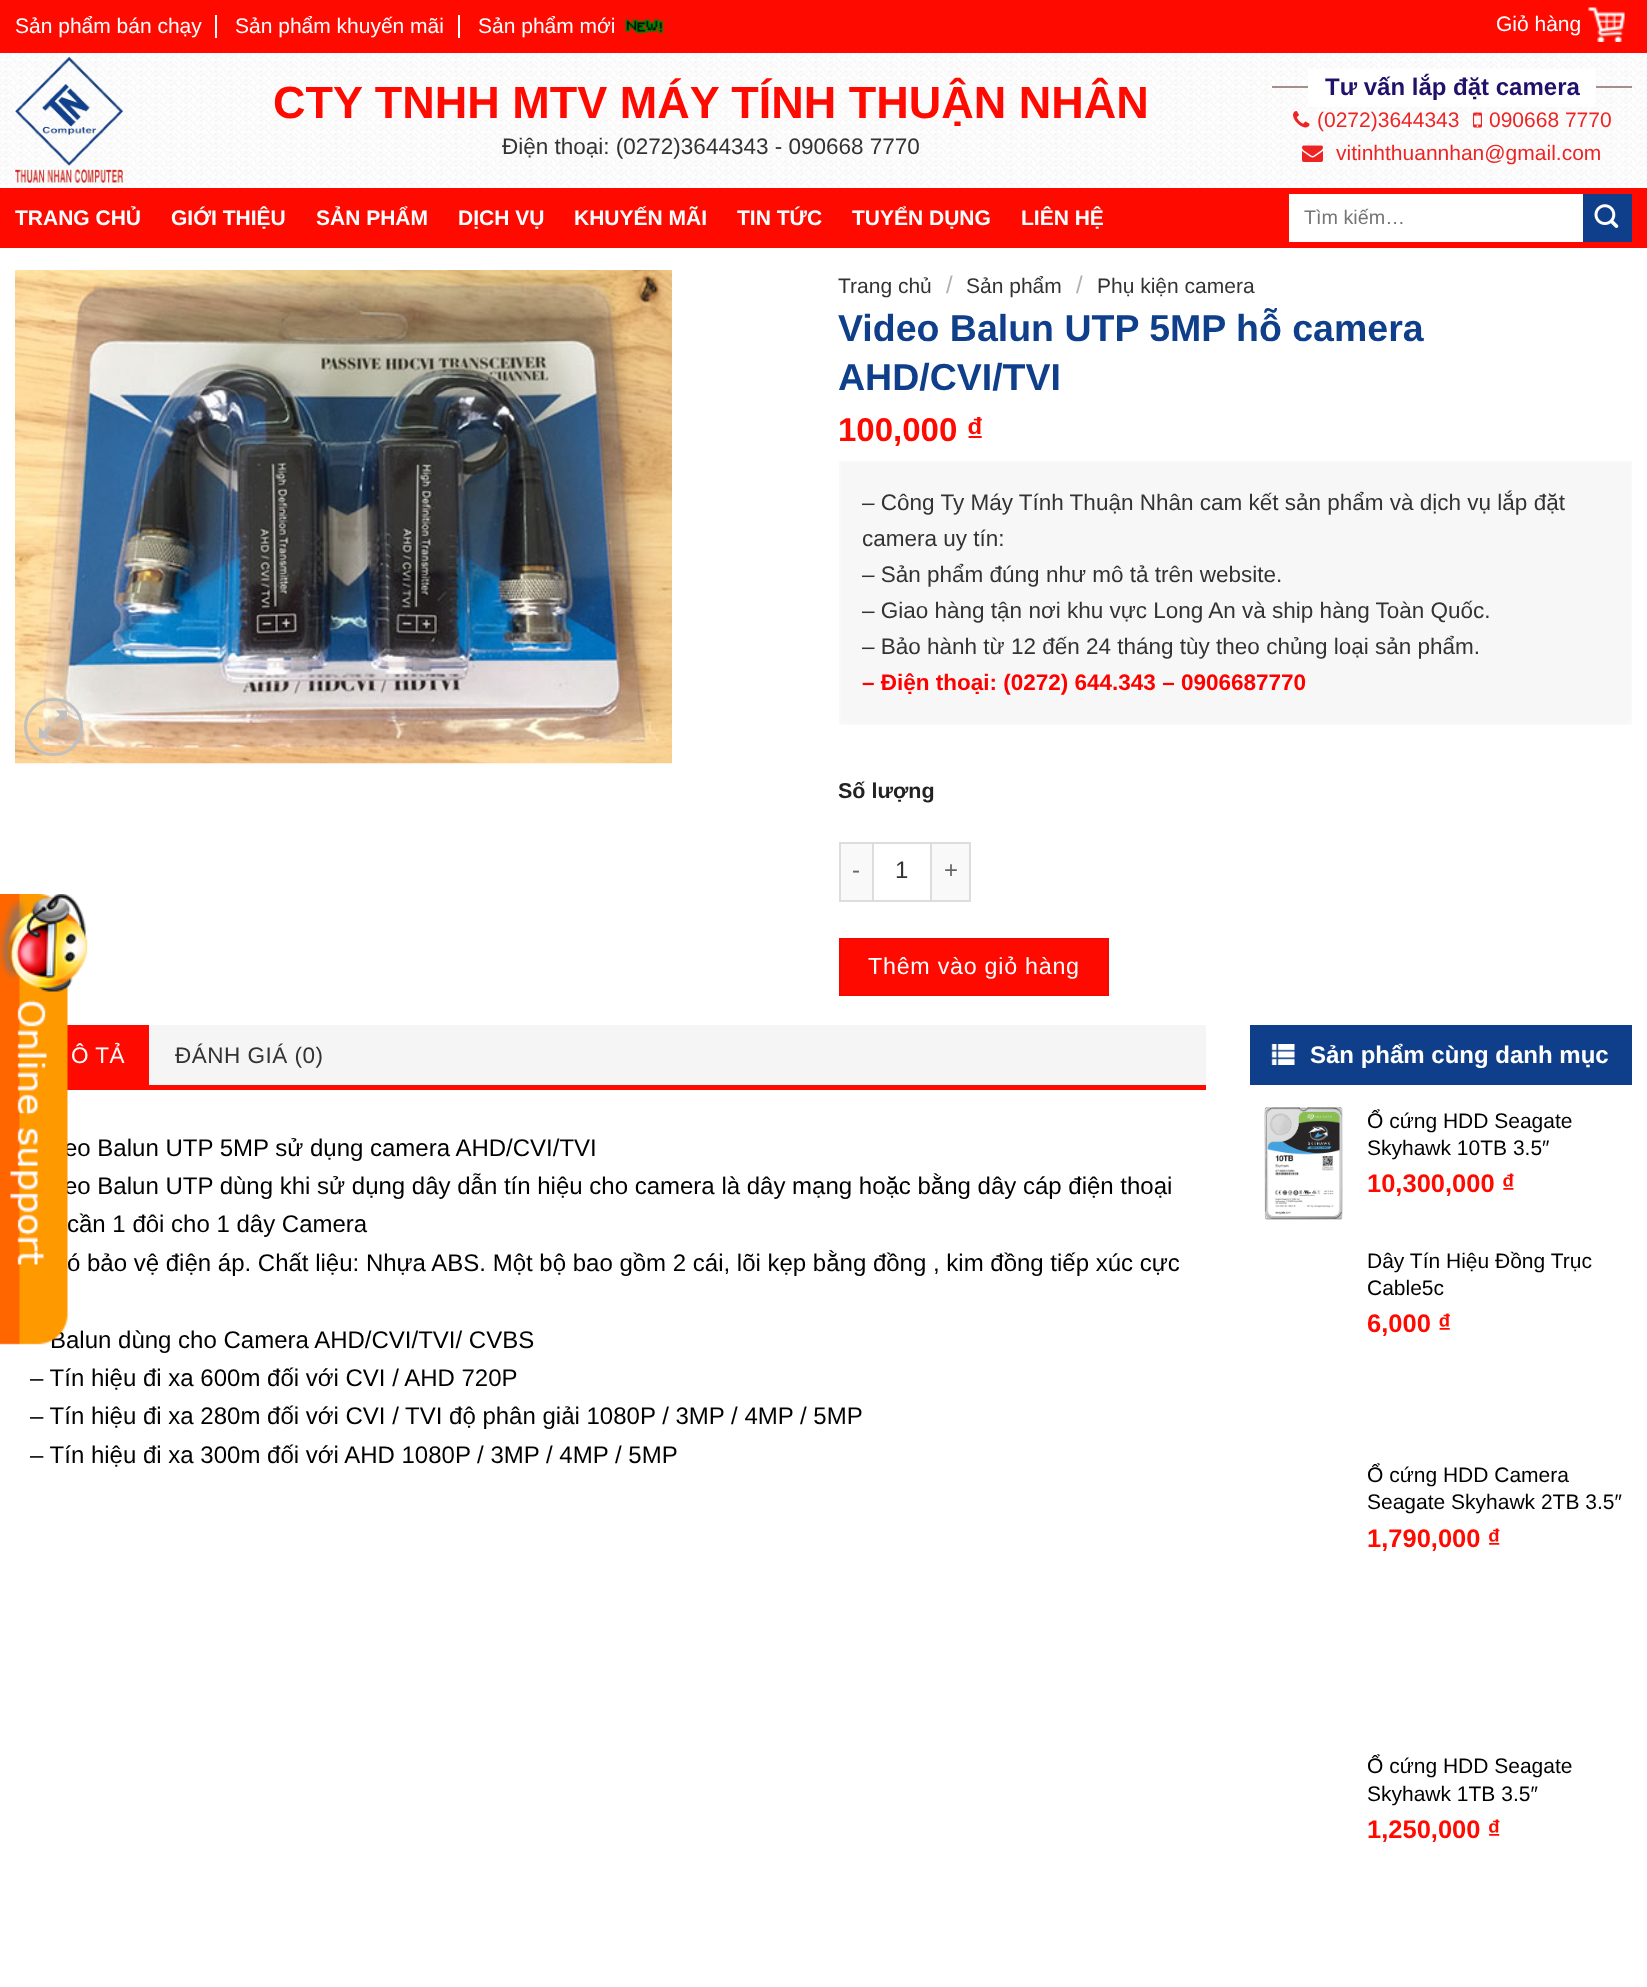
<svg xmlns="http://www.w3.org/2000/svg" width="1647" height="1987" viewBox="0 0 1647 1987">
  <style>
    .t1 { font: 21px Liberation Sans; fill: #fff; }
    .t2 { font: bold 45px Liberation Sans; fill: #ff0a00; }
    .t3 { font: 22.5px Liberation Sans; fill: #333; }
    .t4 { font: bold 24px Liberation Sans; fill: #21116a; }
    .t5 { font: 21px Liberation Sans; fill: #ee2424; }
    .t6 { font: bold 21px Liberation Sans; fill: #fff; }
    .t7 { font: 19.75px Liberation Sans; fill: #757575; }
    .t8 { font: 21px Liberation Sans; fill: #333; }
    .t9 { font: 24px Liberation Sans; fill: #b2b2b2; }
    .t10 { font: bold 37.5px Liberation Sans; fill: #0f3f8a; }
    .t11 { font: bold 33px Liberation Sans; fill: #ff0a00; }
    .t12 { font: bold 22.5px Liberation Sans; fill: #f00; }
    .t13 { font: bold 21.5px Liberation Sans; fill: #222; }
    .t14 { font: 24px Liberation Sans; fill: #666; }
    .t15 { font: 24px Liberation Sans; fill: #333; }
    .t16 { font: 23.25px Liberation Sans; letter-spacing: 0.75px; fill: #fff; }
    .t17 { font: 22.5px Liberation Sans; letter-spacing: 0.5px; fill: #fff; }
    .t18 { font: 22.5px Liberation Sans; letter-spacing: 0.5px; fill: #333; }
    .t19 { font: 24px Liberation Sans; fill: #000; }
    .t20 { font: bold 24px Liberation Sans; fill: #fff; }
    .t21 { font: 21px Liberation Sans; fill: #000; }
    .t22 { font: bold 25.5px Liberation Sans; fill: #ff0a00; }
  </style>
  <rect width="100%" height="100%" fill="#fff"/>
  <rect x="0" y="0" width="1647" height="53" fill="#ff0a00"/>
  <text x="15" y="33" class="t1">Sản phẩm bán chạy</text>
  <rect x="215" y="15" width="2" height="23" fill="#fff"/>
  <text x="235" y="33" class="t1">Sản phẩm khuyến mãi</text>
  <rect x="458" y="15" width="2" height="23" fill="#fff"/>
  <text x="478" y="33" class="t1">Sản phẩm mới</text>
  <image x="625" y="19" width="38" height="14" href="images/1.png"/>
  <text x="1496" y="31" class="t1">Giỏ hàng</text>
  <image x="1588" y="7" width="37" height="35" href="images/2.png"/>
  <image x="0" y="53" width="1647" height="135" href="images/3.png"/>
  <image x="15" y="57" width="108" height="126" href="images/4.png"/>
  <text x="273" y="118" class="t2">CTY TNHH MTV MÁY TÍNH THUẬN NHÂN</text>
  <text x="502" y="154" class="t3">Điện thoại: (0272)3644343 - 090668 7770</text>
  <rect x="1272" y="86" width="360" height="2" fill="#a08985f2"/>
  <rect x="1308" y="69" width="288" height="38" fill="#fff"/>
  <text x="1325" y="95" class="t4">Tư vấn lắp đặt camera</text>
  <image x="1293" y="111" width="17" height="17" href="images/5.png"/>
  <text x="1317" y="127" class="t5">(0272)3644343</text>
  <image x="1473" y="112" width="9" height="16" href="images/6.png"/>
  <text x="1489" y="127" class="t5">090668 7770</text>
  <image x="1302" y="145" width="21" height="17" href="images/7.png"/>
  <text x="1336" y="160" class="t5">vitinhthuannhan@gmail.com</text>
  <rect x="0" y="188" width="1647" height="60" fill="#ff0a00"/>
  <text x="15" y="225" class="t6">TRANG CHỦ</text>
  <text x="171" y="225" class="t6">GIỚI THIỆU</text>
  <text x="316" y="225" class="t6">SẢN PHẨM</text>
  <text x="458" y="225" class="t6">DỊCH VỤ</text>
  <text x="574" y="225" class="t6">KHUYẾN MÃI</text>
  <text x="737" y="225" class="t6">TIN TỨC</text>
  <text x="852" y="225" class="t6">TUYỂN DỤNG</text>
  <text x="1021" y="225" class="t6">LIÊN HỆ</text>
  <rect x="1289" y="194" width="294" height="48" fill="#fff"/>
  <text x="1304" y="224" class="t7">Tìm kiếm…</text>
  <rect x="1583" y="194" width="49" height="48" fill="#0f3f8a"/>
  <image x="1594" y="204" width="25" height="24" href="images/8.png"/>
  <image x="15" y="270" width="657" height="494" href="images/9.png"/>
  <rect x="25.5" y="699.5" width="56" height="55" rx="27.5" fill="none" stroke="#c0c0c0" stroke-width="3"/>
  <image x="39" y="710" width="28" height="29" href="images/10.png"/>
  <text x="838" y="293" class="t8">Trang chủ</text>
  <text x="946" y="293" class="t9">/</text>
  <text x="966" y="293" class="t8">Sản phẩm</text>
  <text x="1076" y="293" class="t9">/</text>
  <text x="1097" y="293" class="t8">Phụ kiện camera</text>
  <text x="838" y="341" class="t10">Video Balun UTP 5MP hỗ camera</text>
  <text x="838" y="390" class="t10">AHD/CVI/TVI</text>
  <text x="838" y="441" class="t11">100,000 ₫</text>
  <rect x="840" y="462" width="791" height="262" fill="#f7f7f7" stroke="#f9f9f9" stroke-width="2"/>
  <text x="862" y="510" class="t3">– Công Ty Máy Tính Thuận Nhân cam kết sản phẩm và dịch vụ lắp đặt</text>
  <text x="862" y="546" class="t3">camera uy tín:</text>
  <text x="862" y="582" class="t3">– Sản phẩm đúng như mô tả trên website.</text>
  <text x="862" y="618" class="t3">– Giao hàng tận nơi khu vực Long An và ship hàng Toàn Quốc.</text>
  <text x="862" y="654" class="t3">– Bảo hành từ 12 đến 24 tháng tùy theo chủng loại sản phẩm.</text>
  <text x="862" y="690" class="t12">– Điện thoại: (0272) 644.343 – 0906687770</text>
  <text x="838" y="798" class="t13">Số lượng</text>
  <rect x="841" y="844" width="31" height="56" fill="#f9f9f9"/>
  <rect x="839" y="842" width="33" height="2" fill="#ddd"/>
  <rect x="839" y="900" width="33" height="2" fill="#ddd"/>
  <rect x="839" y="842" width="2" height="60" fill="#ddd"/>
  <text x="852" y="878" class="t14">-</text>
  <rect x="873" y="843" width="58" height="58" fill="none" stroke="#ddd" stroke-width="2"/>
  <text x="895" y="878" class="t15">1</text>
  <rect x="932" y="844" width="37" height="56" fill="#f9f9f9"/>
  <rect x="932" y="842" width="39" height="2" fill="#ddd"/>
  <rect x="969" y="842" width="2" height="60" fill="#ddd"/>
  <rect x="932" y="900" width="39" height="2" fill="#ddd"/>
  <text x="944" y="878" class="t14">+</text>
  <rect x="840" y="939" width="268" height="56" fill="#ff0a00" stroke="#f20a00" stroke-width="2"/>
  <text x="868" y="974" class="t16">Thêm vào giỏ hàng</text>
  <rect x="149" y="1025" width="1057" height="60" fill="#f5f5f5"/>
  <rect x="67" y="1085" width="1139" height="5" fill="#ff0a00"/>
  <rect x="67" y="1025" width="82" height="60" fill="#ff0a00"/>
  <text x="71" y="1063" class="t17">Ô TẢ</text>
  <text x="175" y="1063" class="t18">ĐÁNH GIÁ (0)</text>
  <text x="64" y="1156" class="t19">eo Balun UTP 5MP sử dụng camera AHD/CVI/TVI</text>
  <text x="64" y="1194" class="t19">eo Balun UTP dùng khi sử dụng dây dẫn tín hiệu cho camera là dây mạng hoặc bằng dây cáp điện thoại</text>
  <text x="67" y="1232" class="t19">cần 1 đôi cho 1 dây Camera</text>
  <text x="67" y="1271" class="t19">ó bảo vệ điện áp. Chất liệu: Nhựa ABS. Một bộ bao gồm 2 cái, lõi kẹp bằng đồng , kim đồng tiếp xúc cực</text>
  <text x="50" y="1348" class="t19">Balun dùng cho Camera AHD/CVI/TVI/ CVBS</text>
  <text x="30" y="1386" class="t19">– Tín hiệu đi xa 600m đối với CVI / AHD 720P</text>
  <text x="30" y="1424" class="t19">– Tín hiệu đi xa 280m đối với CVI / TVI độ phân giải 1080P / 3MP / 4MP / 5MP</text>
  <text x="30" y="1463" class="t19">– Tín hiệu đi xa 300m đối với AHD 1080P / 3MP / 4MP / 5MP</text>
  <rect x="1250" y="1025" width="382" height="60" fill="#0f3f8a"/>
  <image x="1271" y="1044" width="24" height="21" href="images/11.png"/>
  <text x="1310" y="1063" class="t20">Sản phẩm cùng danh mục</text>
  <image x="1264" y="1107" width="79" height="113" href="images/12.png"/>
  <text x="1367" y="1128" class="t21">Ổ cứng HDD Seagate</text>
  <text x="1367" y="1155" class="t21">Skyhawk 10TB 3.5″</text>
  <text x="1367" y="1192" class="t22">10,300,000 ₫</text>
  <text x="1367" y="1268" class="t21">Dây Tín Hiệu Đồng Trục</text>
  <text x="1367" y="1295" class="t21">Cable5c</text>
  <text x="1367" y="1332" class="t22">6,000 ₫</text>
  <text x="1367" y="1482" class="t21">Ổ cứng HDD Camera</text>
  <text x="1367" y="1509" class="t21">Seagate Skyhawk 2TB 3.5″</text>
  <text x="1367" y="1547" class="t22">1,790,000 ₫</text>
  <text x="1367" y="1773" class="t21">Ổ cứng HDD Seagate</text>
  <text x="1367" y="1801" class="t21">Skyhawk 1TB 3.5″</text>
  <text x="1367" y="1838" class="t22">1,250,000 ₫</text>
  <image x="0" y="894" width="88" height="451" href="images/13.png"/>
</svg>
